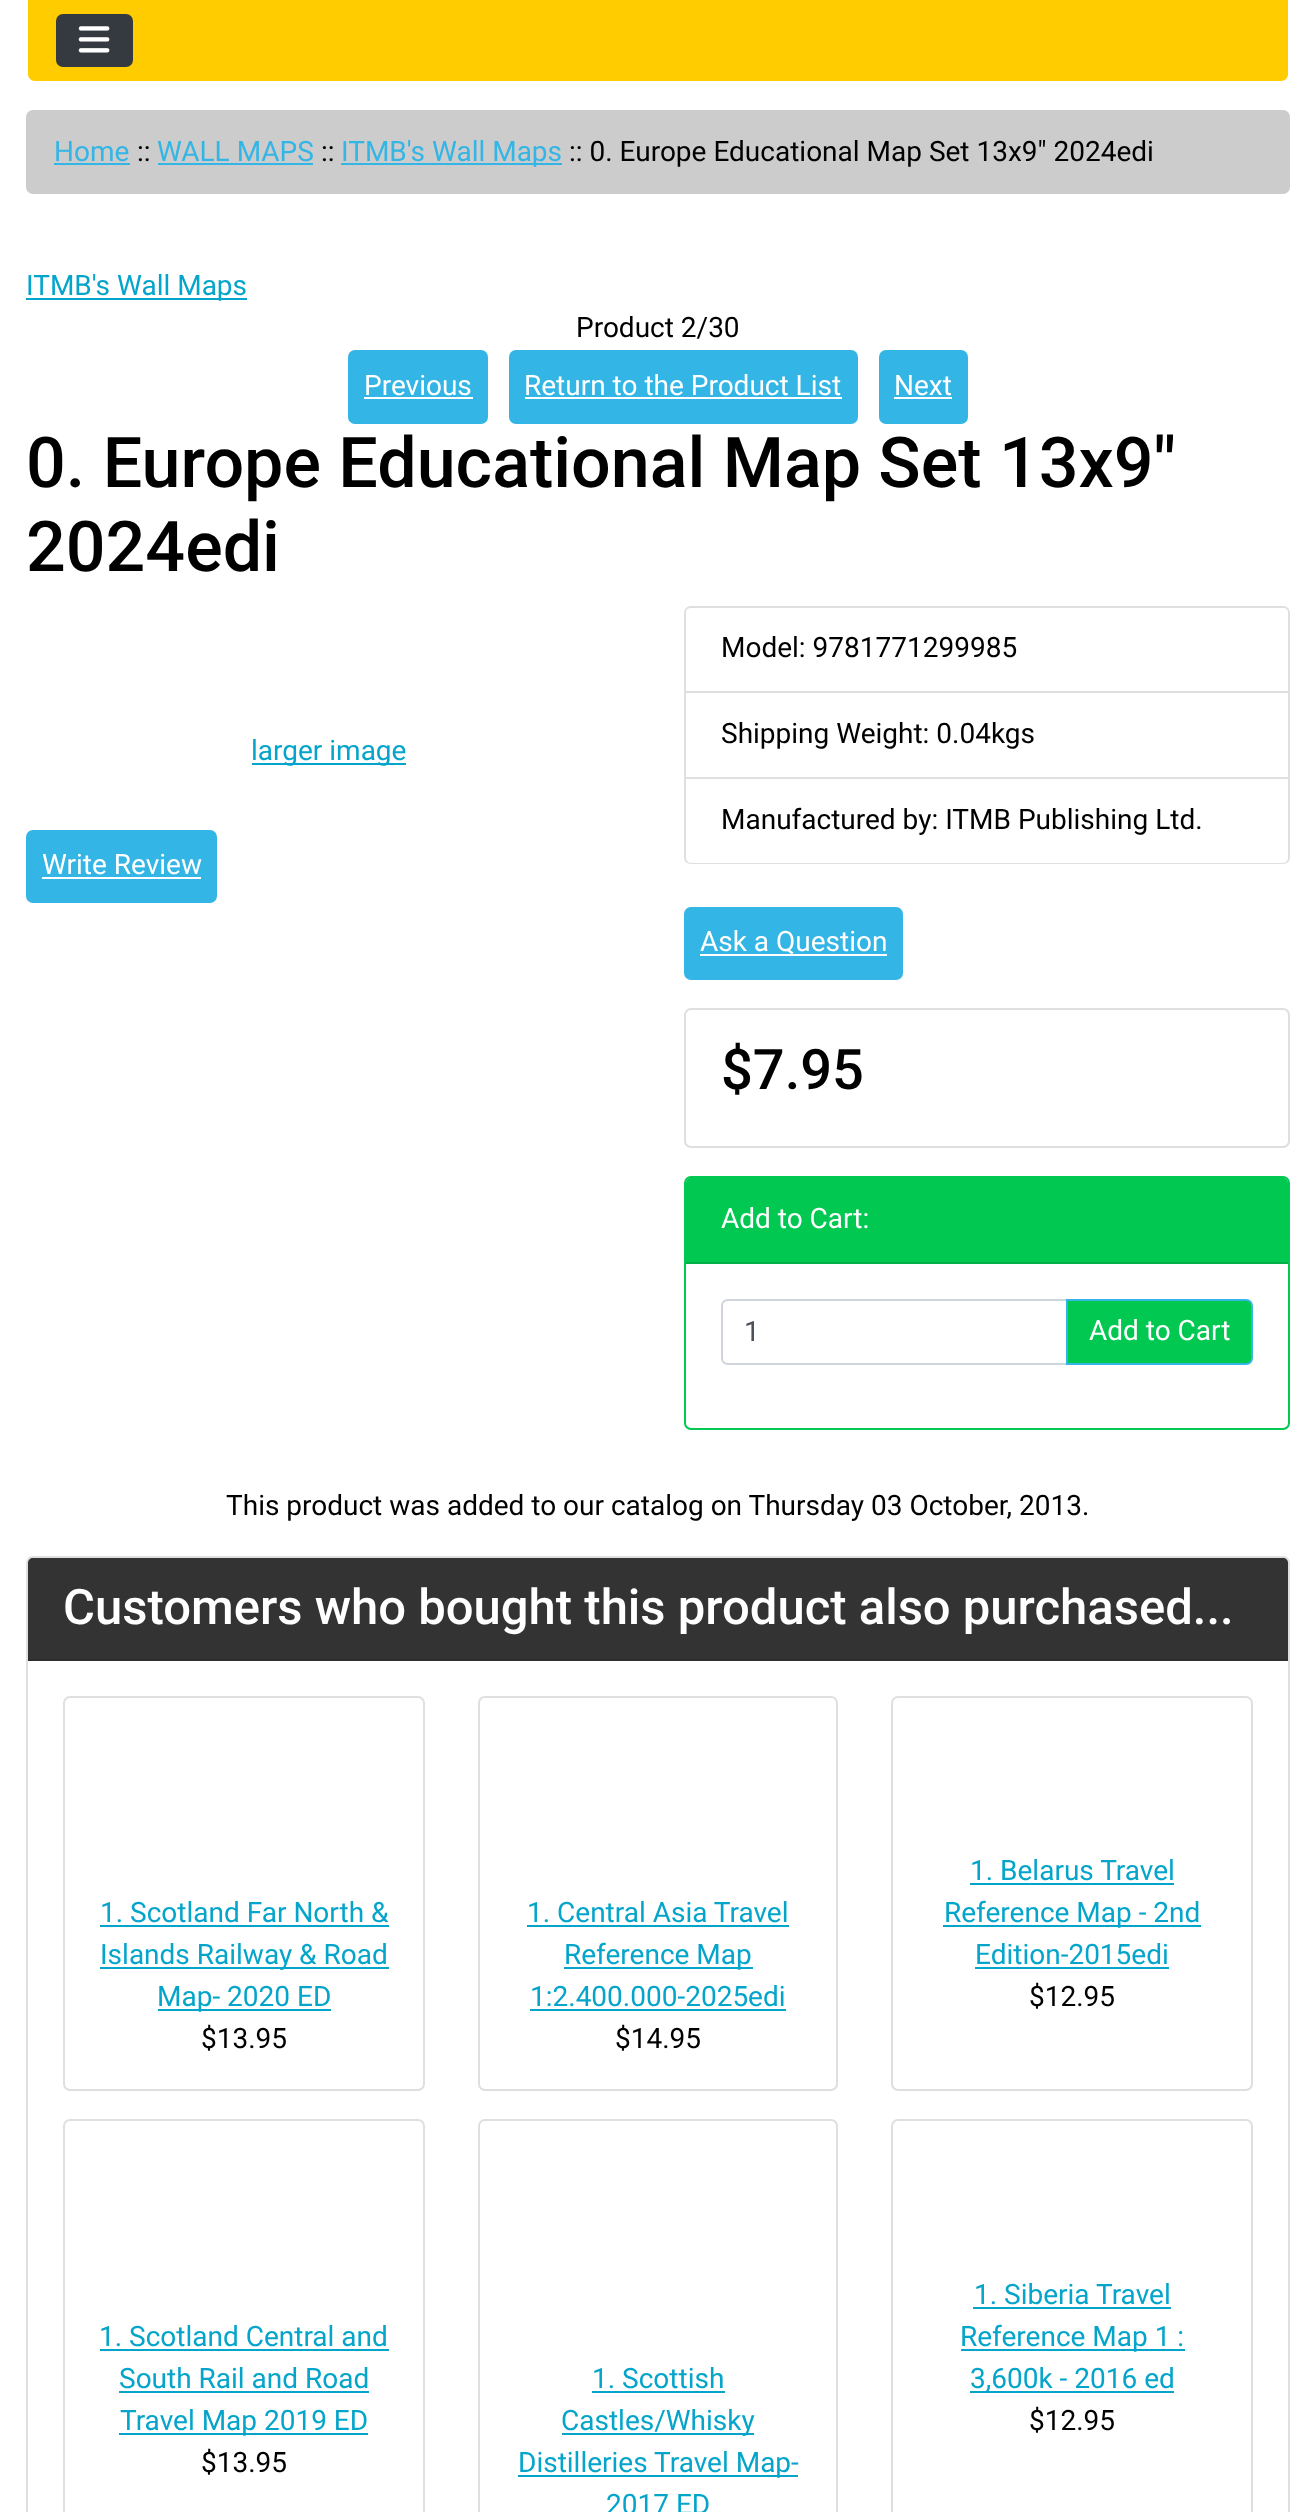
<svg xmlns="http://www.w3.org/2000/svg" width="1316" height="2512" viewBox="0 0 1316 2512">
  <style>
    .t1 { font: 28px Roboto; fill: #33b5e5; }
    .t2 { font: 28px Roboto; fill: #000; }
    .t3 { font: 28px Roboto; fill: #05a5cb; }
    .t4 { font: 28px Roboto; fill: #fff; }
    .t5 { font: 500 70px Roboto; fill: #000; }
    .t6 { font: 500 56px Roboto; fill: #000; }
    .t7 { font: 28px Roboto; fill: #495057; }
    .t8 { font: 500 49px Roboto; fill: #fff; }
  </style>
  <rect width="100%" height="100%" fill="#fff"/>
  <path d="M28 0H1288V74C1288 78 1285 81 1281 81H35C31 81 28 78 28 74Z" fill="#fc0"/>
  <rect x="57" y="15" width="75" height="51" rx="6" fill="#343a40" stroke="#343a40" stroke-width="2"/>
  <image x="78" y="26" width="32" height="27" href="images/1.png"/>
  <rect x="26" y="110" width="1264" height="84" rx="7" fill="#ccc"/>
  <text x="54" y="161" class="t1">Home</text>
  <rect x="54" y="163" width="76" height="2" fill="#33b5e5"/>
  <text x="137" y="161" class="t2">::</text>
  <text x="157" y="161" class="t1">WALL MAPS</text>
  <rect x="158" y="163" width="155" height="2" fill="#33b5e5"/>
  <text x="321" y="161" class="t2">::</text>
  <rect x="341" y="163" width="221" height="2" fill="#33b5e5"/>
  <text x="341" y="161" class="t1">ITMB's Wall Maps</text>
  <text x="569" y="161" class="t2">:: 0. Europe Educational Map Set 13x9" 2024edi</text>
  <rect x="26" y="298" width="221" height="2" fill="#05a5cb"/>
  <text x="26" y="295" class="t3">ITMB's Wall Maps</text>
  <text x="576" y="337" class="t2">Product 2/30</text>
  <rect x="349" y="351" width="138" height="72" rx="6" fill="#33b5e5" stroke="#33b5e5" stroke-width="2"/>
  <text x="364" y="395" class="t4">Previous</text>
  <rect x="364" y="397" width="109" height="2" fill="#fff"/>
  <rect x="510" y="351" width="347" height="72" rx="6" fill="#33b5e5" stroke="#33b5e5" stroke-width="2"/>
  <text x="524" y="395" class="t4">Return to the Product List</text>
  <rect x="525" y="397" width="317" height="2" fill="#fff"/>
  <rect x="880" y="351" width="87" height="72" rx="6" fill="#33b5e5" stroke="#33b5e5" stroke-width="2"/>
  <text x="894" y="395" class="t4">Next</text>
  <rect x="894" y="397" width="58" height="2" fill="#fff"/>
  <text x="26" y="487" class="t5">0. Europe Educational Map Set 13x9"</text>
  <text x="26" y="571" class="t5">2024edi</text>
  <rect x="252" y="763" width="154" height="2" fill="#05a5cb"/>
  <text x="251" y="760" class="t3">larger image</text>
  <rect x="27" y="831" width="189" height="71" rx="6" fill="#33b5e5" stroke="#33b5e5" stroke-width="2"/>
  <text x="42" y="874" class="t4">Write Review</text>
  <rect x="42" y="877" width="159" height="2" fill="#fff"/>
  <path d="M691 607H1283C1286.5 607 1289 609.5 1289 613V692H685V613C685 609.5 687.5 607 691 607Z" fill="none" stroke="#dfdfdf" stroke-width="2"/>
  <text x="721" y="657" class="t2">Model: 9781771299985</text>
  <path d="M1290 693V779L1288 777V693Z" fill="#dfdfdf"/>
  <path d="M1290 779H684L686 777H1288Z" fill="#0000001f"/>
  <path d="M684 779V693H686V777Z" fill="#0000001f"/>
  <text x="721" y="743" class="t2">Shipping Weight: 0.04kgs</text>
  <path d="M684 779H1290V858C1290 861 1287 864 1283 864H691C687 864 684 861 684 858ZM686 779H1288V858C1288 860 1286 863 1283 863H691C688 863 686 860 686 858Z" fill="#dfdfdf" fill-rule="evenodd"/>
  <text x="721" y="829" class="t2">Manufactured by: ITMB Publishing Ltd.</text>
  <rect x="685" y="908" width="217" height="71" rx="6" fill="#33b5e5" stroke="#33b5e5" stroke-width="2"/>
  <rect x="700" y="954" width="187" height="2" fill="#fff"/>
  <text x="700" y="951" class="t4">Ask a Question</text>
  <rect x="685" y="1009" width="604" height="138" rx="6" fill="none" stroke="#dfdfdf" stroke-width="2"/>
  <text x="721" y="1089" class="t6">$7.95</text>
  <rect x="685" y="1177" width="604" height="252" rx="6" fill="none" stroke="#00c851" stroke-width="2"/>
  <path d="M691 1178H1283C1286 1178 1288 1180 1288 1183V1264H686V1183C686 1180 688 1178 691 1178Z" fill="#00c851"/>
  <rect x="686" y="1262" width="602" height="2" fill="#00af47"/>
  <text x="721" y="1228" class="t4">Add to Cart:</text>
  <path d="M728 1300H1067V1364H728C724.5 1364 722 1361.5 722 1358V1306C722 1302.5 724.5 1300 728 1300Z" fill="none" stroke="#ced4da" stroke-width="2"/>
  <text x="744" y="1341" class="t7">1</text>
  <path d="M1067 1300H1246C1249.5 1300 1252 1302.5 1252 1306V1358C1252 1361.5 1249.5 1364 1246 1364H1067Z" fill="#00c851" stroke="#33b5e5" stroke-width="2"/>
  <text x="1089" y="1340" class="t4">Add to Cart</text>
  <text x="226" y="1515" class="t2">This product was added to our catalog on Thursday 03 October, 2013.</text>
  <rect x="27" y="1557" width="1262" height="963" rx="6" fill="none" stroke="#dfdfdf" stroke-width="2"/>
  <path d="M33 1558H1283C1286 1558 1288 1560 1288 1563V1661H28V1563C28 1560 30 1558 33 1558Z" fill="#333"/>
  <rect x="28" y="1659" width="1260" height="2" fill="#2d2d2d"/>
  <text x="63" y="1624" class="t8">Customers who bought this product also purchased...</text>
  <rect x="64" y="1697" width="360" height="393" rx="6" fill="none" stroke="#dfdfdf" stroke-width="2"/>
  <text x="100" y="1922" class="t3">1. Scotland Far North &amp;</text>
  <rect x="100" y="1925" width="289" height="2" fill="#05a5cb"/>
  <rect x="100" y="1967" width="289" height="2" fill="#05a5cb"/>
  <text x="100" y="1964" class="t3">Islands Railway &amp; Road</text>
  <rect x="158" y="2009" width="173" height="2" fill="#05a5cb"/>
  <text x="157" y="2006" class="t3">Map- 2020 ED</text>
  <text x="201" y="2048" class="t2">$13.95</text>
  <rect x="479" y="1697" width="358" height="393" rx="6" fill="none" stroke="#dfdfdf" stroke-width="2"/>
  <text x="527" y="1922" class="t3">1. Central Asia Travel</text>
  <rect x="527" y="1925" width="262" height="2" fill="#05a5cb"/>
  <rect x="564" y="1967" width="189" height="2" fill="#05a5cb"/>
  <text x="564" y="1964" class="t3">Reference Map</text>
  <text x="530" y="2006" class="t3">1:2.400.000-2025edi</text>
  <rect x="530" y="2009" width="256" height="2" fill="#05a5cb"/>
  <text x="615" y="2048" class="t2">$14.95</text>
  <rect x="892" y="1697" width="360" height="393" rx="6" fill="none" stroke="#dfdfdf" stroke-width="2"/>
  <text x="970" y="1880" class="t3">1. Belarus Travel</text>
  <rect x="970" y="1883" width="204" height="2" fill="#05a5cb"/>
  <rect x="943" y="1925" width="258" height="2" fill="#05a5cb"/>
  <text x="944" y="1922" class="t3">Reference Map - 2nd</text>
  <text x="975" y="1964" class="t3">Edition-2015edi</text>
  <rect x="975" y="1967" width="194" height="2" fill="#05a5cb"/>
  <text x="1029" y="2006" class="t2">$12.95</text>
  <rect x="64" y="2120" width="360" height="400" rx="6" fill="none" stroke="#dfdfdf" stroke-width="2"/>
  <text x="99" y="2346" class="t3">1. Scotland Central and</text>
  <rect x="100" y="2349" width="289" height="2" fill="#05a5cb"/>
  <text x="119" y="2388" class="t3">South Rail and Road</text>
  <rect x="119" y="2391" width="250" height="2" fill="#05a5cb"/>
  <rect x="119" y="2433" width="249" height="2" fill="#05a5cb"/>
  <text x="120" y="2430" class="t3">Travel Map 2019 ED</text>
  <text x="201" y="2472" class="t2">$13.95</text>
  <rect x="479" y="2120" width="358" height="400" rx="6" fill="none" stroke="#dfdfdf" stroke-width="2"/>
  <text x="592" y="2388" class="t3">1. Scottish</text>
  <rect x="592" y="2391" width="133" height="2" fill="#05a5cb"/>
  <rect x="562" y="2433" width="192" height="2" fill="#05a5cb"/>
  <text x="561" y="2430" class="t3">Castles/Whisky</text>
  <rect x="518" y="2475" width="280" height="2" fill="#05a5cb"/>
  <text x="518" y="2472" class="t3">Distilleries Travel Map-</text>
  <text x="606" y="2514" class="t3">2017 ED</text>
  <rect x="892" y="2120" width="360" height="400" rx="6" fill="none" stroke="#dfdfdf" stroke-width="2"/>
  <text x="974" y="2304" class="t3">1. Siberia Travel</text>
  <rect x="973" y="2307" width="198" height="2" fill="#05a5cb"/>
  <rect x="961" y="2349" width="224" height="2" fill="#05a5cb"/>
  <text x="960" y="2346" class="t3">Reference Map 1 :</text>
  <rect x="970" y="2391" width="204" height="2" fill="#05a5cb"/>
  <text x="970" y="2388" class="t3">3,600k - 2016 ed</text>
  <text x="1029" y="2430" class="t2">$12.95</text>
</svg>
